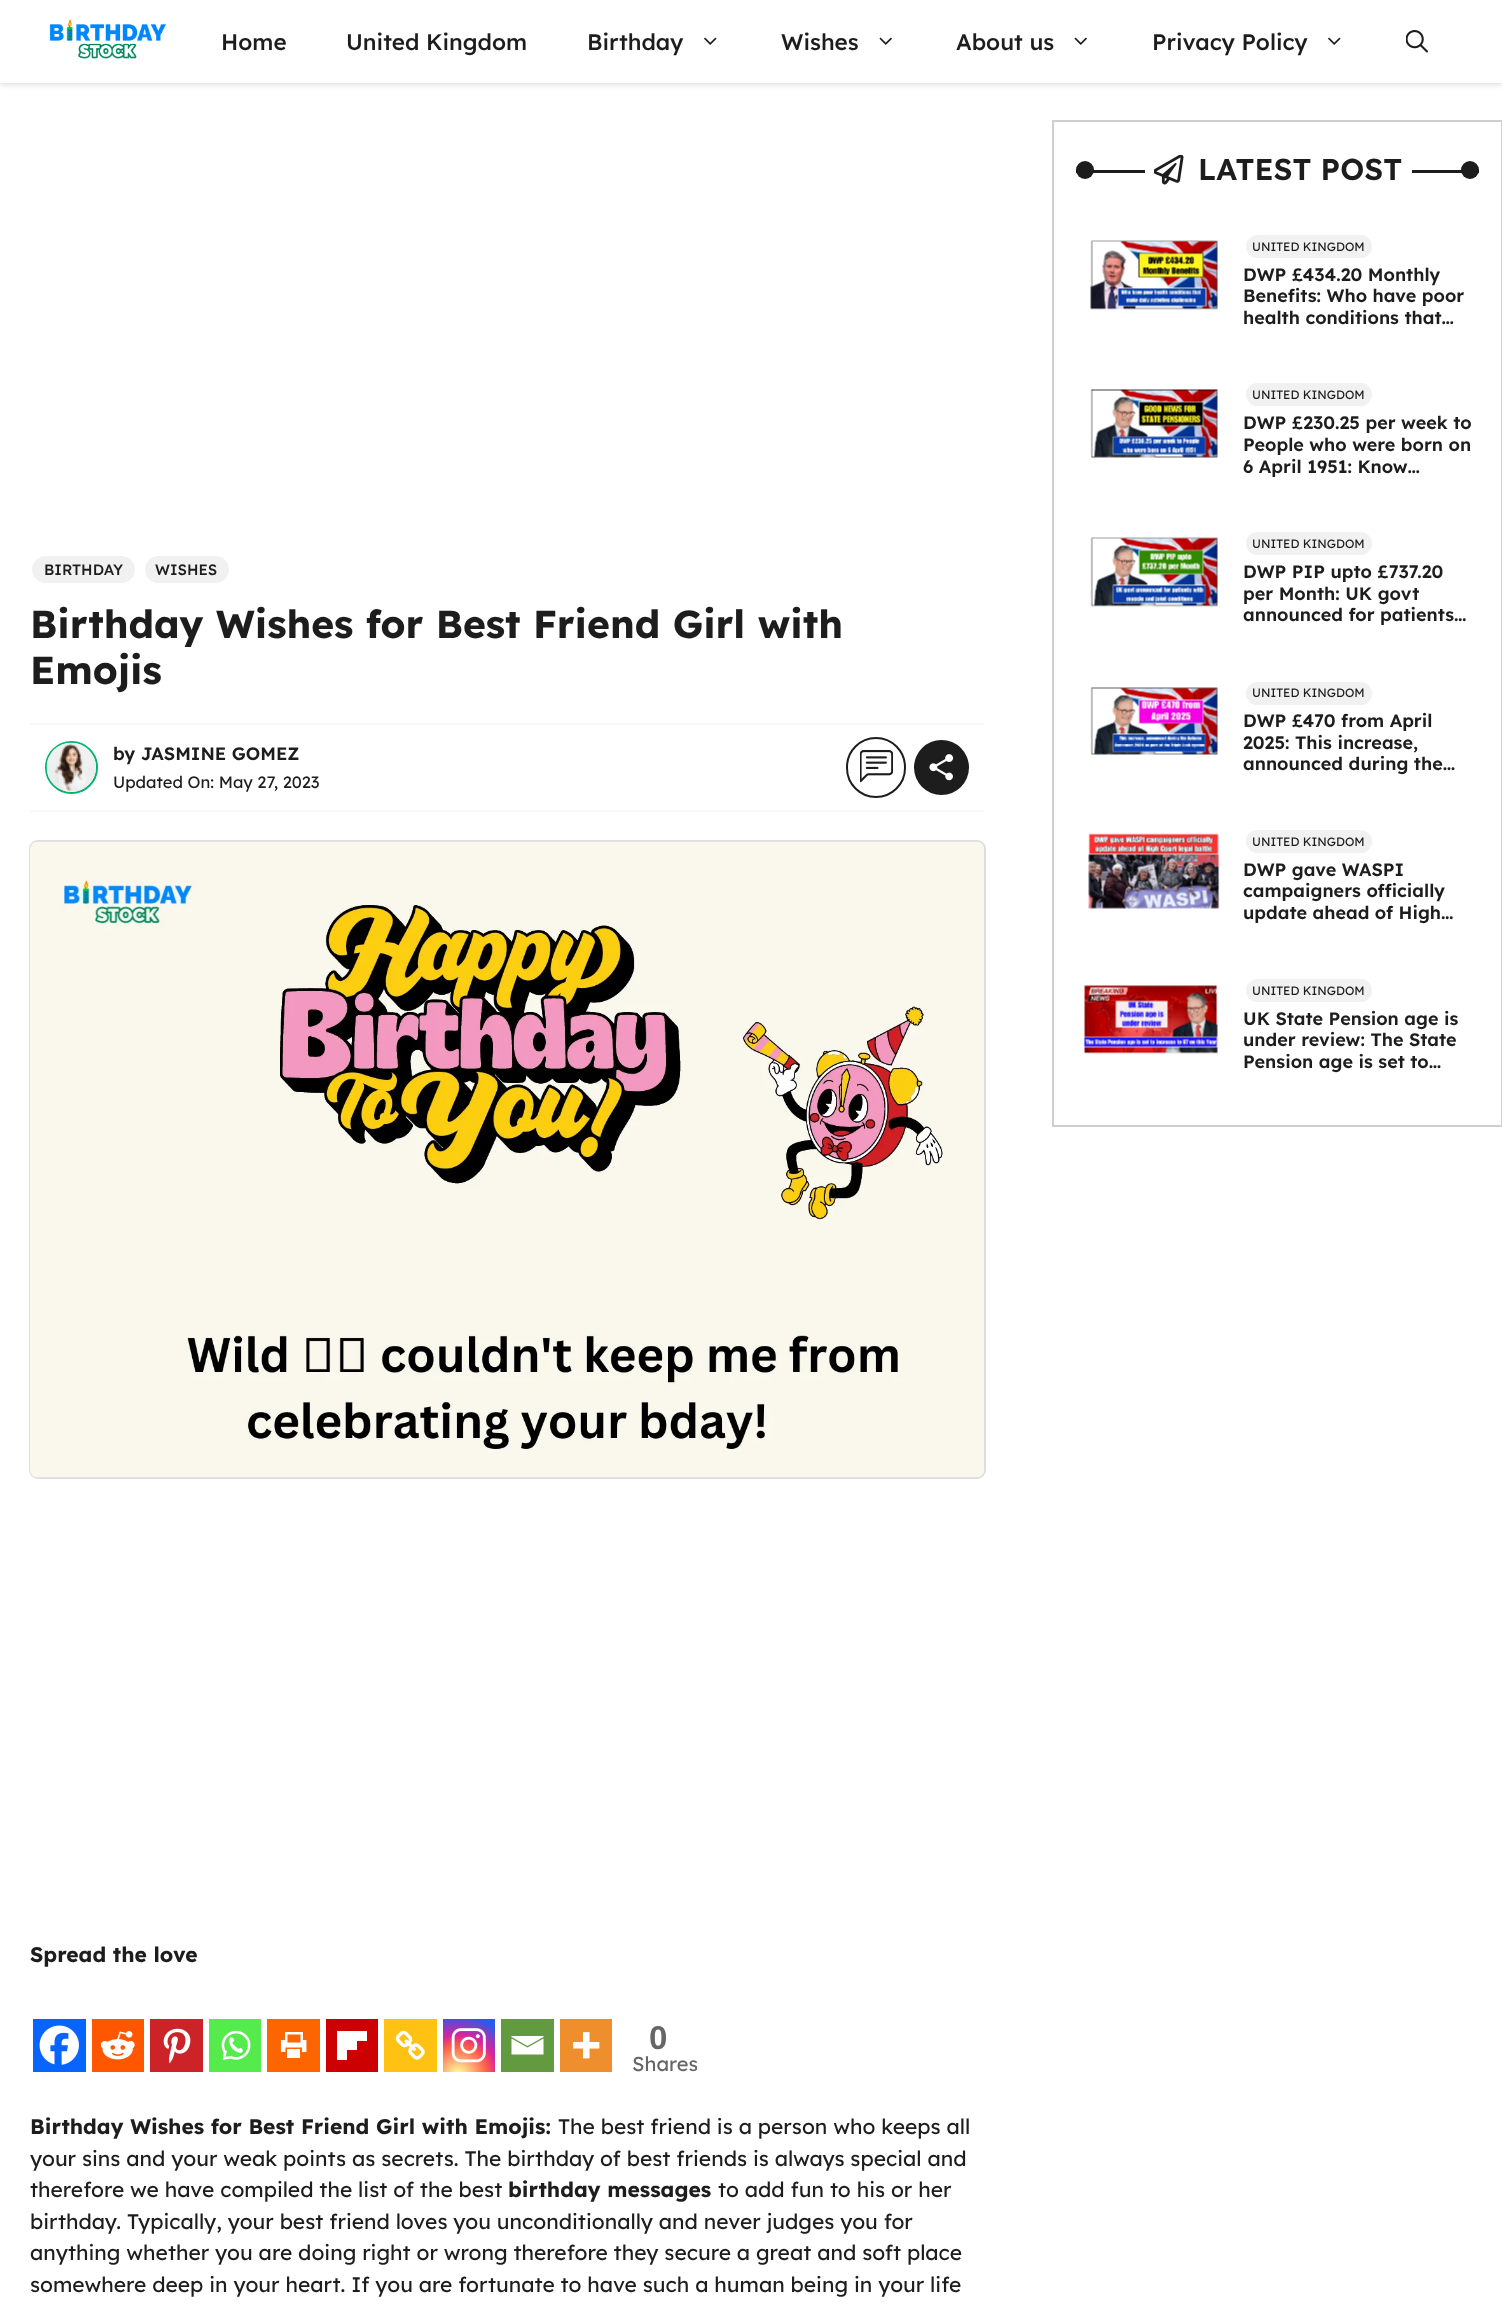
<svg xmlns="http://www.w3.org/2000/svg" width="1502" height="2311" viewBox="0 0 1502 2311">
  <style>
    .t1 { font: 500 22.5px Lexend Deca; fill: #1d1d1d; }
    .t2 { font: 500 15px Lexend Deca; fill: #1d1d1d; }
    .t3 { font: bold 39px Lexend Deca; fill: #1d1d1d; }
    .t4 { font: 600 18px Lexend Deca; fill: #1d1d1d; }
    .t5 { font: 16.5px Lexend Deca; fill: #1d1d1d; }
    .t6 { font: bold 21px Lexend Deca; fill: #1d1d1d; }
    .t7 { font: bold 33px Liberation Sans; fill: #666; }
    .t8 { font: 20px Lexend Deca; fill: #666; }
    .t9 { font: 21px Lexend Deca; fill: #1d1d1d; }
    .t10 { font: 600 30px Lexend Deca; fill: #1d1d1d; }
    .t11 { font: 12px Lexend Deca; fill: #1d1d1d; }
  </style>
  <defs>
    <radialGradient id="g1" gradientUnits="userSpaceOnUse" cx="458" cy="2075" r="67"><stop offset="0" stop-color="#fdf497"/><stop offset="0.05" stop-color="#fdf497"/><stop offset="0.45" stop-color="#fd5949"/><stop offset="0.6" stop-color="#d6249f"/><stop offset="0.9" stop-color="#285aeb"/></radialGradient>
  </defs>
  <rect width="100%" height="100%" fill="#fff"/>
  <rect x="0" y="2" width="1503" height="82" fill="#00000029" filter="blur(3px)"/>
  <rect x="0" y="0" width="1502" height="83" fill="#fff"/>
  <image x="49" y="19" width="118" height="40" href="images/1.png"/>
  <text x="221" y="50" class="t1">Home</text>
  <text x="346" y="50" class="t1">United Kingdom</text>
  <text x="587" y="50" class="t1">Birthday</text>
  <image x="704" y="37" width="13" height="8" href="images/2.png"/>
  <text x="781" y="50" class="t1">Wishes</text>
  <image x="879" y="37" width="13" height="8" href="images/3.png"/>
  <text x="956" y="50" class="t1">About us</text>
  <image x="1074" y="37" width="13" height="8" href="images/3.png"/>
  <text x="1152" y="50" class="t1">Privacy Policy</text>
  <image x="1328" y="37" width="13" height="8" href="images/2.png"/>
  <image x="1406" y="30" width="22" height="23" href="images/4.png"/>
  <rect x="31" y="555" width="105" height="29" rx="14.5" fill="#f1f1f1" stroke="#fff" stroke-width="2"/>
  <text x="44" y="575" class="t2">BIRTHDAY</text>
  <rect x="144" y="555" width="86" height="29" rx="14.5" fill="#f1f1f1" stroke="#fff" stroke-width="2"/>
  <text x="155" y="575" class="t2">WISHES</text>
  <text x="30" y="638" class="t3">Birthday Wishes for Best Friend Girl with</text>
  <text x="30" y="684" class="t3">Emojis</text>
  <rect x="30" y="723" width="954" height="2" fill="#f8f8f8"/>
  <rect x="30" y="810" width="954" height="2" fill="#f8f8f8"/>
  <circle cx="71.5" cy="767.5" r="25.5" fill="none" stroke="#00b36e" stroke-width="2"/>
  <image x="46" y="742" width="50" height="50" href="images/5.png"/>
  <text x="113" y="760" class="t4">by JASMINE GOMEZ</text>
  <text x="113" y="788" class="t5">Updated On: May 27, 2023</text>
  <rect x="847" y="738" width="58" height="59" rx="29" fill="none" stroke="#1d1d1d" stroke-width="2"/>
  <image x="860" y="750" width="33" height="33" href="images/6.png"/>
  <circle cx="941.5" cy="767.5" r="27.5" fill="#1d1d1d"/>
  <image x="929" y="754" width="25" height="27" href="images/7.png"/>
  <rect x="30" y="841" width="955" height="637" rx="8" fill="none" stroke="#ddddde" stroke-width="2"/>
  <image x="30" y="841" width="954" height="637" href="images/8.png"/>
  <text x="30" y="1962" class="t6">Spread the love</text>
  <rect x="33" y="2019" width="53" height="53" fill="#0765fe"/>
  <image x="39" y="2025" width="40" height="40" href="images/9.png"/>
  <rect x="92" y="2019" width="52" height="53" fill="#ff5700"/>
  <image x="100" y="2031" width="35" height="29" href="images/10.png"/>
  <rect x="150" y="2019" width="53" height="53" fill="#cc2329"/>
  <image x="163" y="2028" width="28" height="36" href="images/11.png"/>
  <rect x="209" y="2019" width="52" height="53" fill="#55eb4c"/>
  <image x="221" y="2030" width="30" height="30" href="images/12.png"/>
  <rect x="267" y="2019" width="53" height="53" fill="#fd6500"/>
  <image x="280" y="2032" width="27" height="26" href="images/13.png"/>
  <rect x="326" y="2019" width="52" height="53" fill="#c00"/>
  <rect x="347" y="2041" width="10" height="9" fill="#fff"/>
  <rect x="347" y="2031" width="20" height="10" fill="#fff"/>
  <rect x="337" y="2031" width="10" height="29" fill="#fff"/>
  <rect x="384" y="2019" width="53" height="53" fill="#ffc112"/>
  <image x="395" y="2030" width="30" height="30" href="images/14.png"/>
  <rect x="443" y="2019" width="52" height="53" fill="url(#g1)"/>
  <image x="451" y="2028" width="35" height="35" href="images/15.png"/>
  <rect x="501" y="2019" width="53" height="53" fill="#649a3f"/>
  <path d="M510 2036H543.5V2037L527.5 2046L511.5 2037V2036M511.5 2038.5L527.5 2047.5L543.5 2038.5V2054.5H511.5V2038.5" fill="#fff"/>
  <rect x="560" y="2019" width="52" height="53" fill="#ee8e2d"/>
  <image x="573" y="2032" width="27" height="27" href="images/16.png"/>
  <text x="649" y="2049" class="t7">0</text>
  <text x="632" y="2071" class="t8">Shares</text>
  <text x="30" y="2134" class="t6">Birthday Wishes for Best Friend Girl with Emojis:</text>
  <text x="558" y="2134" class="t9">The best friend is a person who keeps all</text>
  <text x="30" y="2166" class="t9">your sins and your weak points as secrets. The birthday of best friends is always special and</text>
  <text x="30" y="2197" class="t9">therefore we have compiled the list of the best</text>
  <text x="508" y="2197" class="t6">birthday messages</text>
  <text x="718" y="2197" class="t9">to add fun to his or her</text>
  <text x="30" y="2229" class="t9">birthday. Typically, your best friend loves you unconditionally and never judges you for</text>
  <text x="30" y="2260" class="t9">anything whether you are doing right or wrong therefore they secure a great and soft place</text>
  <text x="30" y="2292" class="t9">somewhere deep in your heart. If you are fortunate to have such a human being in your life</text>
  <rect x="1053" y="121" width="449" height="1005" fill="none" stroke="#cfcfcf" stroke-width="2"/>
  <rect x="1076" y="170" width="403" height="3" fill="#1d1d1d"/>
  <circle cx="1085" cy="170" r="9" fill="#1d1d1d"/>
  <rect x="1145" y="170" width="267" height="3" fill="#fff"/>
  <image x="1154" y="155" width="30" height="30" href="images/17.png"/>
  <text x="1198" y="180" class="t10">LATEST POST</text>
  <circle cx="1470" cy="170" r="9" fill="#1d1d1d"/>
  <image x="1090" y="240" width="128" height="70" href="images/18.png"/>
  <rect x="1245" y="234" width="128" height="25" rx="12.5" fill="#f1f1f1" stroke="#fff" stroke-width="2"/>
  <text x="1252" y="251" class="t11">UNITED KINGDOM</text>
  <text x="1243" y="281" class="t4">DWP £434.20 Monthly</text>
  <text x="1243" y="302" class="t4">Benefits: Who have poor</text>
  <text x="1243" y="324" class="t4">health conditions that…</text>
  <image x="1090" y="389" width="128" height="69" href="images/19.png"/>
  <rect x="1245" y="382" width="128" height="25" rx="12.5" fill="#f1f1f1" stroke="#fff" stroke-width="2"/>
  <text x="1252" y="399" class="t11">UNITED KINGDOM</text>
  <text x="1243" y="429" class="t4">DWP £230.25 per week to</text>
  <text x="1243" y="451" class="t4">People who were born on</text>
  <text x="1243" y="473" class="t4">6 April 1951: Know…</text>
  <image x="1090" y="537" width="128" height="70" href="images/20.png"/>
  <rect x="1245" y="531" width="128" height="25" rx="12.5" fill="#f1f1f1" stroke="#fff" stroke-width="2"/>
  <text x="1252" y="548" class="t11">UNITED KINGDOM</text>
  <text x="1243" y="578" class="t4">DWP PIP upto £737.20</text>
  <text x="1243" y="600" class="t4">per Month: UK govt</text>
  <text x="1243" y="621" class="t4">announced for patients…</text>
  <image x="1090" y="687" width="128" height="68" href="images/21.png"/>
  <rect x="1245" y="681" width="128" height="25" rx="12.5" fill="#f1f1f1" stroke="#fff" stroke-width="2"/>
  <text x="1252" y="697" class="t11">UNITED KINGDOM</text>
  <text x="1243" y="727" class="t4">DWP £470 from April</text>
  <text x="1243" y="749" class="t4">2025: This increase,</text>
  <text x="1243" y="770" class="t4">announced during the…</text>
  <image x="1088" y="833" width="132" height="76" href="images/22.png"/>
  <rect x="1245" y="829" width="128" height="25" rx="12.5" fill="#f1f1f1" stroke="#fff" stroke-width="2"/>
  <text x="1252" y="846" class="t11">UNITED KINGDOM</text>
  <text x="1243" y="876" class="t4">DWP gave WASPI</text>
  <text x="1243" y="897" class="t4">campaigners officially</text>
  <text x="1243" y="919" class="t4">update ahead of High…</text>
  <image x="1083" y="985" width="135" height="69" href="images/23.png"/>
  <rect x="1245" y="978" width="128" height="25" rx="12.5" fill="#f1f1f1" stroke="#fff" stroke-width="2"/>
  <text x="1252" y="995" class="t11">UNITED KINGDOM</text>
  <text x="1243" y="1025" class="t4">UK State Pension age is</text>
  <text x="1243" y="1046" class="t4">under review: The State</text>
  <text x="1243" y="1068" class="t4">Pension age is set to…</text>
</svg>
